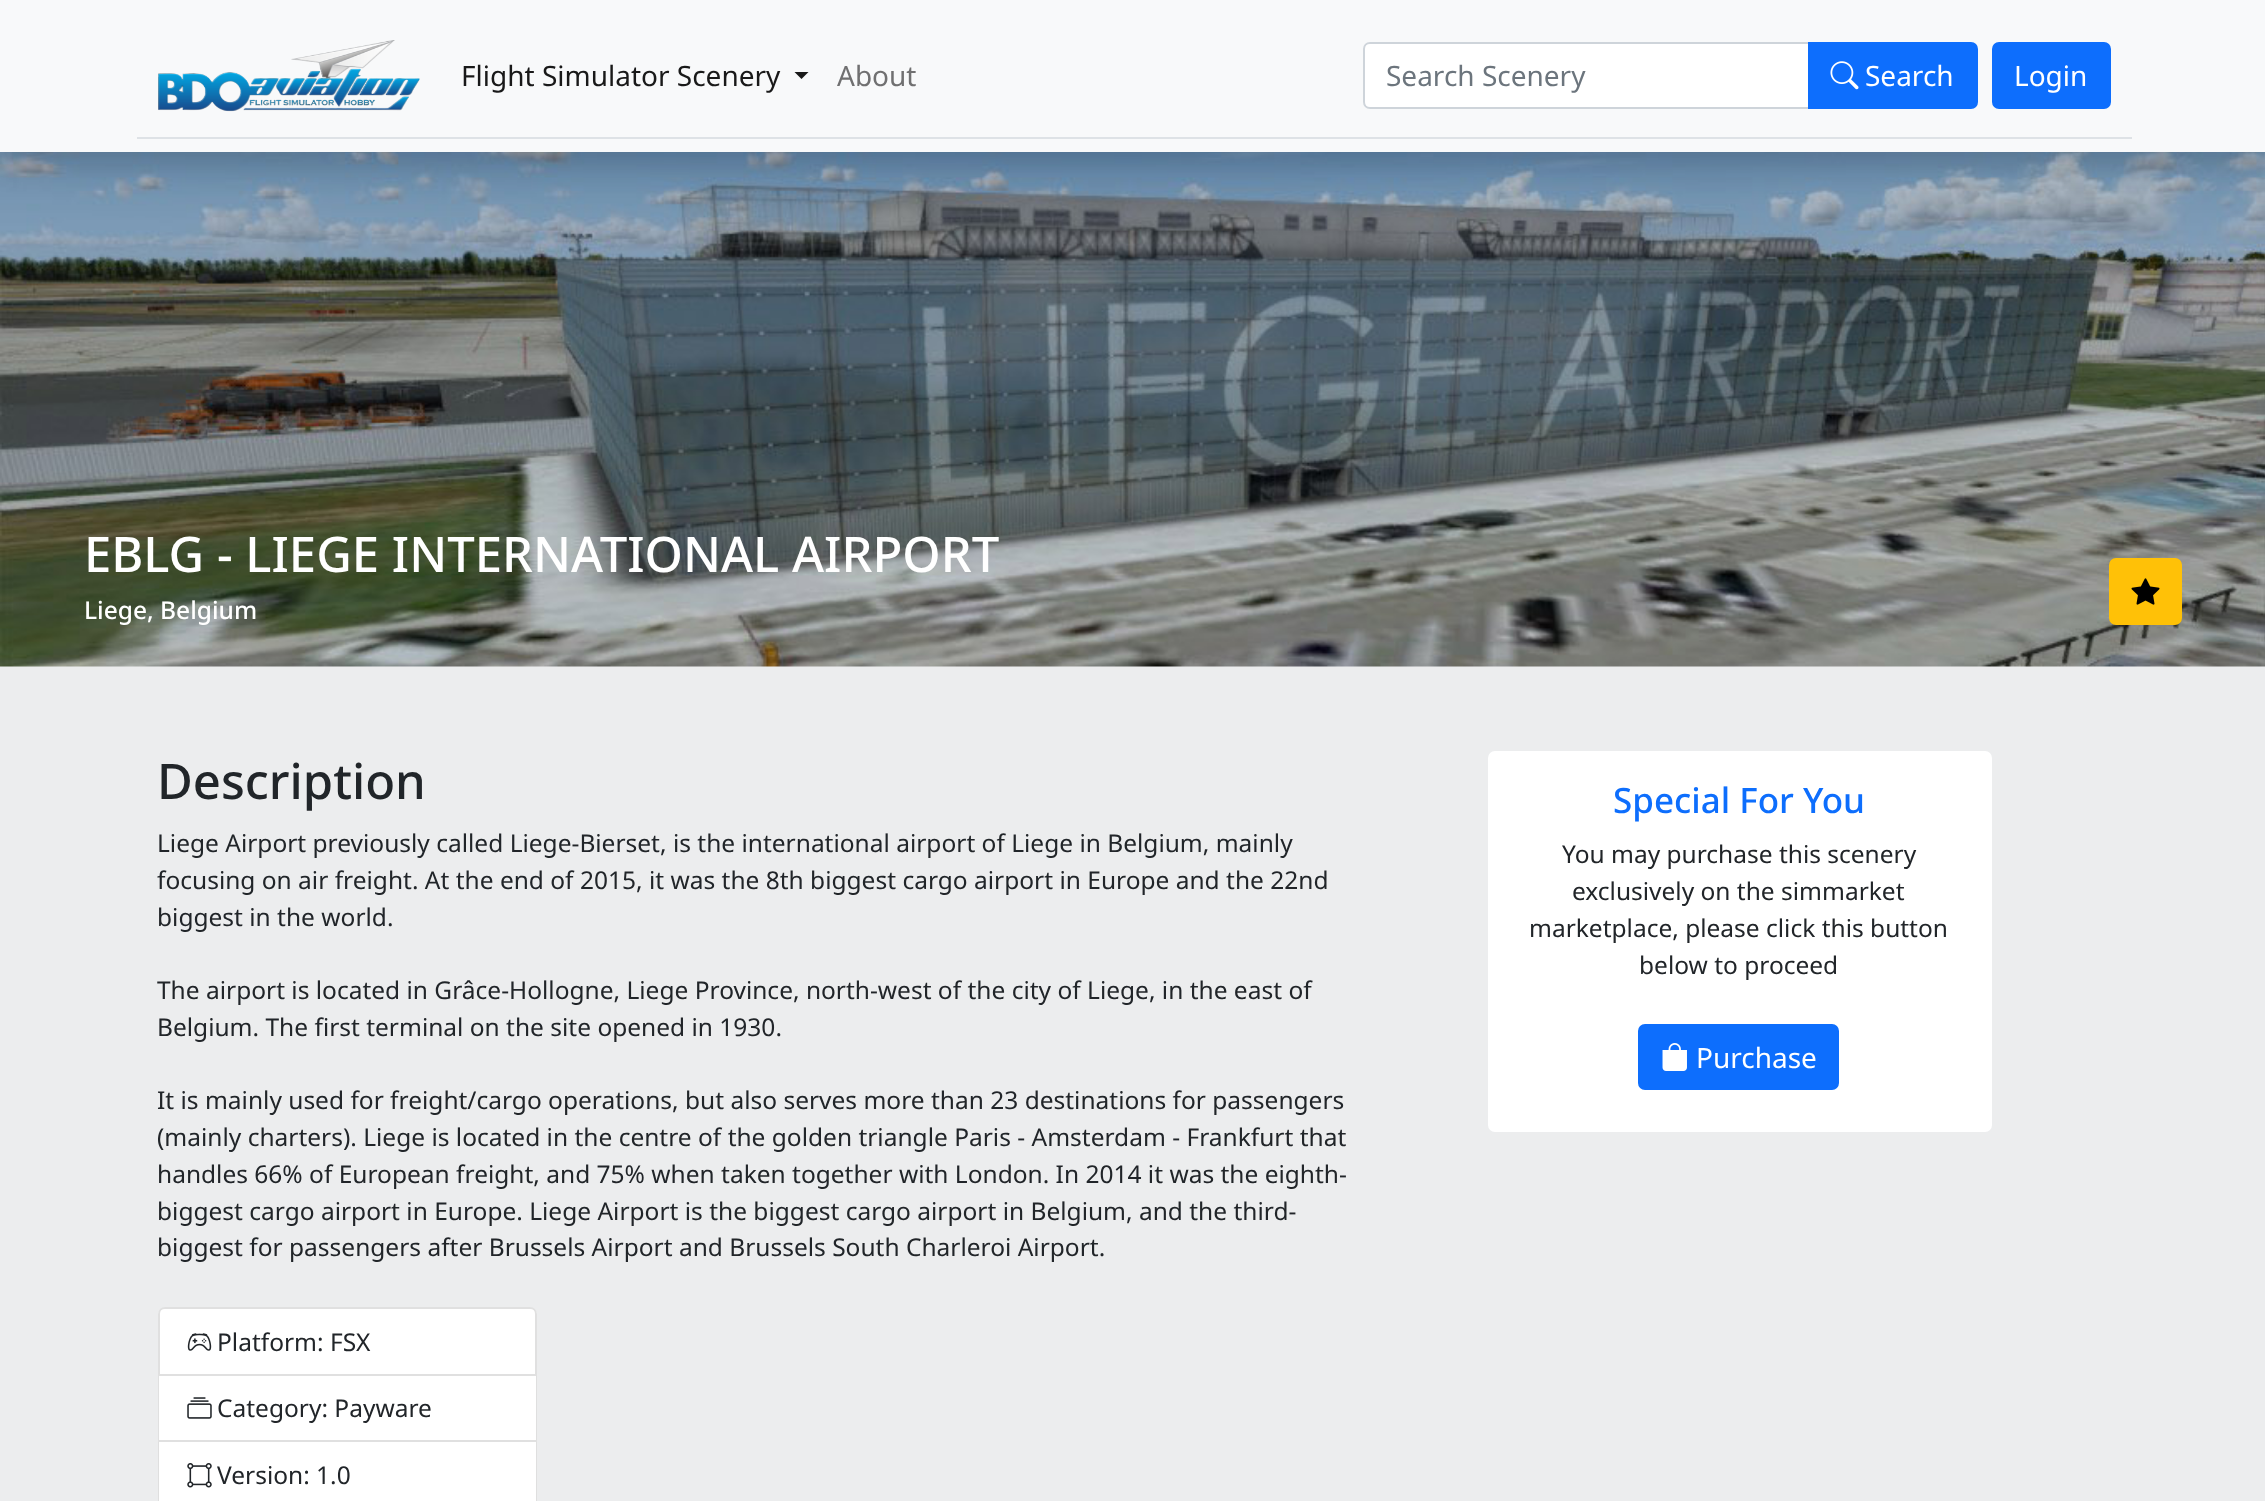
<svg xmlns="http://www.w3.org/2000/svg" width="2265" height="1501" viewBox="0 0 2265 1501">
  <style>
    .t1 { font: 28px Noto Sans; fill: #191919; }
    .t2 { font: 28px Noto Sans; fill: #707071; }
    .t3 { font: 28px Noto Sans; fill: #6c757d; }
    .t4 { font: 28px Noto Sans; fill: #fff; }
    .t5 { font: 500 49px Noto Sans; fill: #fff; }
    .t6 { font: 500 24.5px Noto Sans; fill: #fff; }
    .t7 { font: 500 49px Noto Sans; fill: #212529; }
    .t8 { font: 24.5px Noto Sans; fill: #212529; }
    .t9 { font: 500 35px Noto Sans; fill: #0d6efd; }
  </style>
  <rect width="100%" height="100%" fill="#ecedee"/>
  <image x="0" y="152" width="2265" height="515" href="images/3.png"/>
  <rect x="0" y="14" width="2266" height="152" fill="#00000026" filter="blur(14px)"/>
  <rect x="0" y="0" width="2265" height="152" fill="#f8f9fa"/>
  <rect x="137" y="137" width="1995" height="2" fill="#dee2e6"/>
  <image x="158" y="40" width="262" height="72" href="images/1.png"/>
  <text x="461" y="86" class="t1">Flight Simulator Scenery</text>
  <path d="M794.5 72H808.5L801.5 79Z" fill="#191919"/>
  <text x="837" y="86" class="t2">About</text>
  <path d="M1370 43H1809V108H1370C1366.5 108 1364 105.5 1364 102V49C1364 45.5 1366.5 43 1370 43Z" fill="#fff" stroke="#ced4da" stroke-width="2"/>
  <text x="1386" y="86" class="t3">Search Scenery</text>
  <path d="M1809 43H1971C1974.5 43 1977 45.5 1977 49V102C1977 105.5 1974.5 108 1971 108H1809Z" fill="#0d6efd" stroke="#0d6efd" stroke-width="2"/>
  <image x="1830" y="61" width="29" height="29" href="images/2.png"/>
  <text x="1865" y="86" class="t4">Search</text>
  <rect x="1993" y="43" width="117" height="65" rx="6" fill="#0d6efd" stroke="#0d6efd" stroke-width="2"/>
  <text x="2014" y="86" class="t4">Login</text>
  <text x="84" y="572" class="t5">EBLG - LIEGE INTERNATIONAL AIRPORT</text>
  <rect x="2110" y="559" width="71" height="65" rx="6" fill="#ffc107" stroke="#ffc107" stroke-width="2"/>
  <image x="2131" y="578" width="29" height="27" href="images/4.png"/>
  <text x="84" y="619" class="t6">Liege, Belgium</text>
  <text x="157" y="799" class="t7">Description</text>
  <text x="157" y="852" class="t8">Liege Airport previously called Liege-Bierset, is the international airport of Liege in Belgium, mainly</text>
  <text x="157" y="889" class="t8">focusing on air freight. At the end of 2015, it was the 8th biggest cargo airport in Europe and the 22nd</text>
  <text x="157" y="926" class="t8">biggest in the world.</text>
  <text x="157" y="999" class="t8">The airport is located in Grâce-Hollogne, Liege Province, north-west of the city of Liege, in the east of</text>
  <text x="157" y="1036" class="t8">Belgium. The first terminal on the site opened in 1930.</text>
  <text x="157" y="1109" class="t8">It is mainly used for freight/cargo operations, but also serves more than 23 destinations for passengers</text>
  <text x="157" y="1146" class="t8">(mainly charters). Liege is located in the centre of the golden triangle Paris - Amsterdam - Frankfurt that</text>
  <text x="157" y="1183" class="t8">handles 66% of European freight, and 75% when taken together with London. In 2014 it was the eighth-</text>
  <text x="157" y="1220" class="t8">biggest cargo airport in Europe. Liege Airport is the biggest cargo airport in Belgium, and the third-</text>
  <text x="157" y="1256" class="t8">biggest for passengers after Brussels Airport and Brussels South Charleroi Airport.</text>
  <path d="M165 1307H530C534 1307 537 1310 537 1314V1376H158V1314C158 1310 161 1307 165 1307Z" fill="#fff"/>
  <path d="M165 1308H530C533.5 1308 536 1310.5 536 1314V1375H159V1314C159 1310.5 161.5 1308 165 1308Z" fill="none" stroke="#0000001f" stroke-width="2"/>
  <image x="187" y="1333" width="25" height="18" href="images/5.png"/>
  <text x="217" y="1351" class="t8">Platform: FSX</text>
  <rect x="158" y="1376" width="379" height="66" fill="#fff"/>
  <path d="M537 1376V1442L536 1440V1376Z" fill="#dfdfdf"/>
  <path d="M537 1442H158L159 1440H536Z" fill="#0000001f"/>
  <path d="M158 1442V1376H159V1440Z" fill="#0000001f"/>
  <image x="187" y="1397" width="25" height="22" href="images/6.png"/>
  <text x="217" y="1417" class="t8">Category: Payware</text>
  <rect x="159" y="1442" width="377" height="59" fill="#fff"/>
  <path d="M537 1442V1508L536 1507V1442Z" fill="#dfdfdf"/>
  <path d="M158 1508V1442H159V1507Z" fill="#dfdfdf"/>
  <image x="187" y="1463" width="25" height="25" href="images/7.png"/>
  <text x="217" y="1484" class="t8">Version: 1.0</text>
  <rect x="1488" y="751" width="504" height="381" rx="7" fill="#fff"/>
  <text x="1613" y="813" class="t9">Special For You</text>
  <text x="1562" y="863" class="t8">You may purchase this scenery</text>
  <text x="1572" y="900" class="t8">exclusively on the simmarket</text>
  <text x="1529" y="937" class="t8">marketplace, please click this button</text>
  <text x="1639" y="974" class="t8">below to proceed</text>
  <rect x="1639" y="1025" width="199" height="64" rx="6" fill="#0d6efd" stroke="#0d6efd" stroke-width="2"/>
  <image x="1662" y="1043" width="25" height="28" href="images/8.png"/>
  <text x="1696" y="1068" class="t4">Purchase</text>
</svg>
